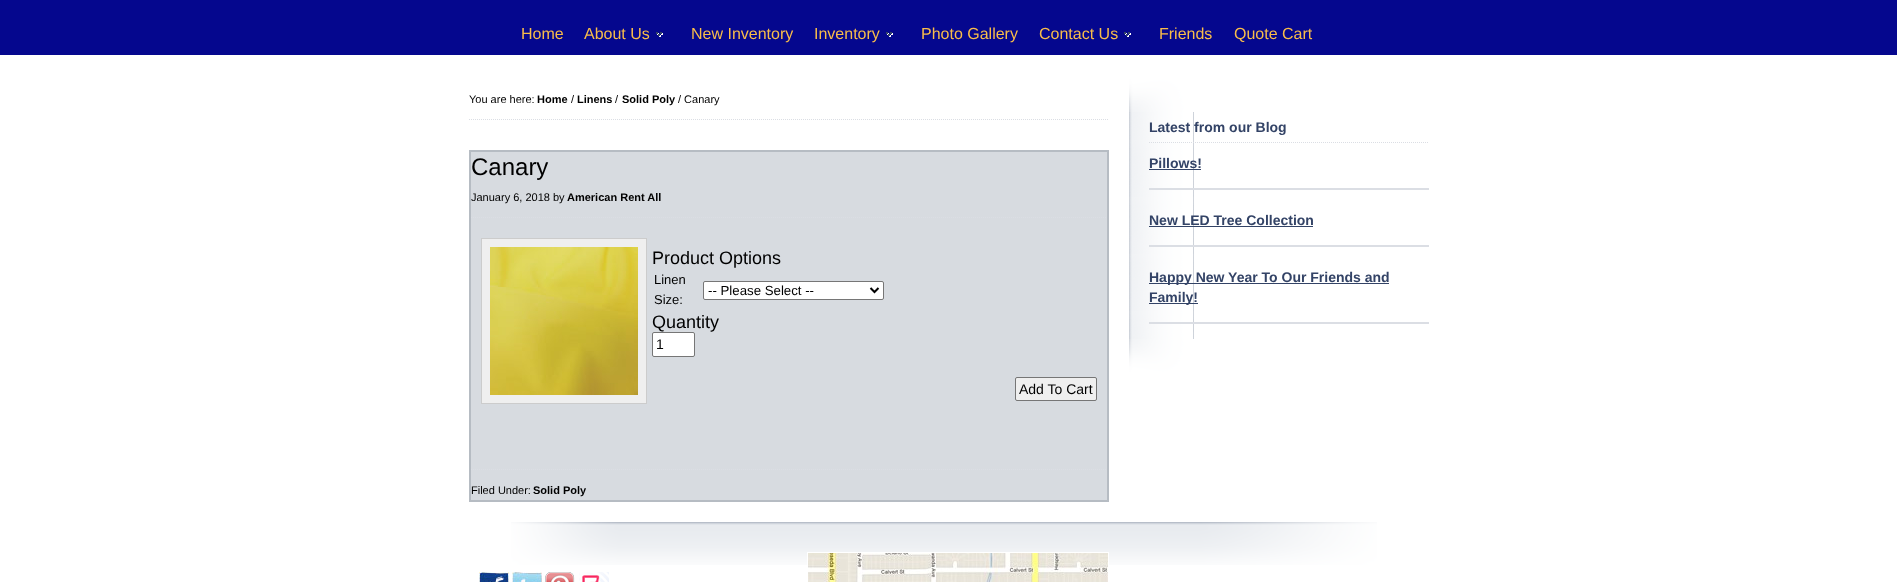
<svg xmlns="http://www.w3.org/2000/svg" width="1897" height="582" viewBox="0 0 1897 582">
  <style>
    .t1 { font: 16px Liberation Sans; fill: #f9bd4a; }
    .t2 { font: 11px Liberation Sans; fill: #000; }
    .t3 { font: bold 11px Liberation Sans; fill: #000; }
    .t4 { font: 24px Liberation Sans; fill: #000; }
    .t5 { font: 18px Liberation Sans; fill: #000; }
    .t6 { font: 13px Liberation Sans; fill: #000; }
    .t7 { font: 13.25px Liberation Sans; fill: #000; }
    .t8 { font: 14px Liberation Sans; fill: #000; }
    .t9 { font: bold 14px Liberation Sans; fill: #334366; }
  </style>
  <rect width="100%" height="100%" fill="#fff"/>
  <rect x="0" y="0" width="1897" height="55" fill="#05078e"/>
  <text x="521" y="39" class="t1">Home</text>
  <text x="584" y="39" class="t1">About Us</text>
  <image x="656" y="32" width="7" height="5" href="images/1.png"/>
  <text x="691" y="39" class="t1">New Inventory</text>
  <text x="814" y="39" class="t1">Inventory</text>
  <image x="886" y="32" width="7" height="5" href="images/1.png"/>
  <text x="921" y="39" class="t1">Photo Gallery</text>
  <text x="1039" y="39" class="t1">Contact Us</text>
  <image x="1124" y="32" width="7" height="5" href="images/1.png"/>
  <text x="1159" y="39" class="t1">Friends</text>
  <text x="1234" y="39" class="t1">Quote Cart</text>
  <path d="M469 119.5H1109" fill="none" stroke="#dbdee4" stroke-dasharray="1 1"/>
  <text x="469" y="103" class="t2">You are here:</text>
  <text x="537" y="103" class="t3">Home</text>
  <text x="571" y="103" class="t2">/</text>
  <text x="577" y="103" class="t3">Linens</text>
  <text x="615" y="103" class="t2">/</text>
  <text x="622" y="103" class="t3">Solid Poly</text>
  <text x="678" y="103" class="t2">/ Canary</text>
  <rect x="470" y="151" width="638" height="350" fill="#d7dbe0" stroke="#b6bcc3" stroke-width="2"/>
  <text x="471" y="175" class="t4">Canary</text>
  <path d="M471 217.5H1107" fill="none" stroke="#dbdee4" stroke-dasharray="1 1"/>
  <text x="471" y="201" class="t2">January 6, 2018 by</text>
  <text x="567" y="201" class="t3">American Rent All</text>
  <rect x="481.5" y="238.5" width="165" height="165" fill="#efefef" stroke="#ccc"/>
  <image x="490" y="247" width="148" height="148" href="images/2.png"/>
  <text x="652" y="264" class="t5">Product Options</text>
  <text x="654" y="284" class="t6">Linen</text>
  <text x="654" y="304" class="t6">Size:</text>
  <rect x="703.5" y="281.5" width="180" height="18" rx="1.5" fill="#fff" stroke="#767676"/>
  <path d="M870.5 288L874.5 292L878.5 288" fill="none" stroke="#000" stroke-width="2"/>
  <text x="708" y="295" class="t7">-- Please Select --</text>
  <text x="652" y="328" class="t5">Quantity</text>
  <rect x="652.5" y="332.5" width="42" height="24" rx="1.5" fill="#fff" stroke="#767676"/>
  <text x="656" y="349" class="t8">1</text>
  <rect x="1015.5" y="377.5" width="81" height="23" rx="1.5" fill="#efefef" stroke="#767676"/>
  <text x="1019" y="394" class="t8">Add To Cart</text>
  <path d="M471 469.5H1107" fill="none" stroke="#dbdee4" stroke-dasharray="1 1"/>
  <text x="471" y="494" class="t2">Filed Under:</text>
  <text x="533" y="494" class="t3">Solid Poly</text>
  <image x="1129" y="112" width="65" height="227" href="images/3.png"/>
  <image x="1129" y="79" width="65" height="33" href="images/4.png"/>
  <path d="M1149 142.5H1429" fill="none" stroke="#dbdee4" stroke-dasharray="1 1"/>
  <text x="1149" y="132" class="t9">Latest from our Blog</text>
  <rect x="1149" y="188" width="280" height="2" fill="#dbdee4"/>
  <text x="1149" y="168" class="t9">Pillows!</text>
  <rect x="1149" y="169" width="52" height="1" fill="#334366"/>
  <rect x="1149" y="245" width="280" height="2" fill="#dbdee4"/>
  <text x="1149" y="225" class="t9">New LED Tree Collection</text>
  <rect x="1149" y="226" width="164" height="1" fill="#334366"/>
  <rect x="1149" y="322" width="280" height="2" fill="#dbdee4"/>
  <rect x="1149" y="283" width="240" height="1" fill="#334366"/>
  <text x="1149" y="282" class="t9">Happy New Year To Our Friends and</text>
  <rect x="1149" y="303" width="49" height="1" fill="#334366"/>
  <text x="1149" y="302" class="t9">Family!</text>
  <image x="1129" y="339" width="65" height="33" href="images/5.png"/>
  <image x="511" y="522" width="866" height="43" href="images/6.png"/>
  <image x="479" y="572" width="30" height="10" href="images/7.png"/>
  <image x="512" y="572" width="30" height="10" href="images/8.png"/>
  <image x="545" y="572" width="30" height="10" href="images/9.png"/>
  <image x="579" y="572" width="30" height="10" href="images/10.png"/>
  <rect x="807" y="552" width="302" height="13" fill="#fff"/>
  <image x="808" y="553" width="300" height="29" href="images/11.png"/>
</svg>
